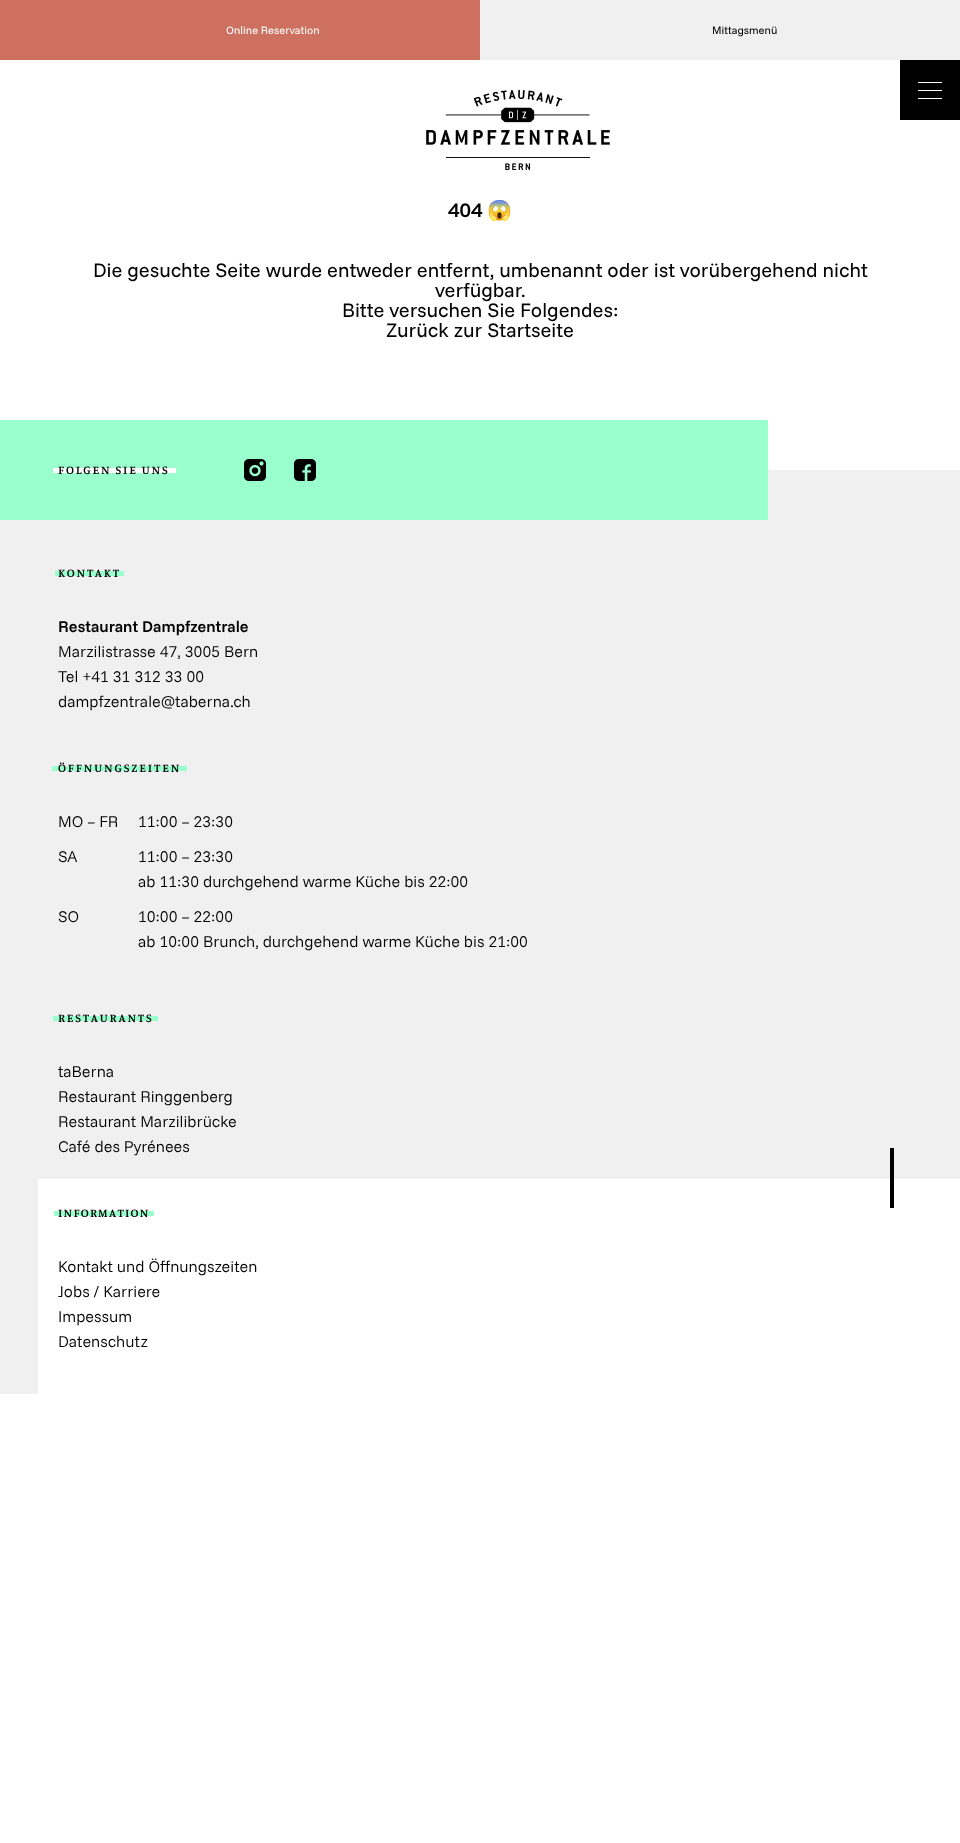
<svg xmlns="http://www.w3.org/2000/svg" width="960" height="1843" viewBox="0 0 960 1843">
  <style>
    .t1 { font: 11px Funnel Sans; fill: #fff; }
    .t2 { font: 11px Funnel Sans; fill: #000; }
    .t3 { font: 600 20px Funnel Display; fill: #000; }
    .t4 { font: bold 20px Noto Color Emoji; fill: #000; }
    .t5 { font: 20px Funnel Sans; fill: #000; }
    .t6 { font: 600 12px Manuale; letter-spacing: 1.9px; fill: #000; }
    .t7 { font: 600 16px Funnel Sans; fill: #000; }
    .t8 { font: 300 16px Funnel Sans; fill: #000; }
    .t9 { font: 600 12px Manuale; letter-spacing: 1.25px; fill: #000; }
  </style>
  <defs>
    <clipPath id="clip1"><rect x="0" y="200" width="960" height="1194"/></clipPath>
  </defs>
  <rect width="100%" height="100%" fill="#fff"/>
  <rect x="0" y="0" width="480" height="60" fill="#cd705f"/>
  <text x="226" y="34" class="t1">Online Reservation</text>
  <rect x="480" y="0" width="480" height="60" fill="#f0f0f0"/>
  <text x="712" y="34" class="t2">Mittagsmenü</text>
  <rect x="900" y="60" width="60" height="60" fill="#000"/>
  <rect x="918" y="90" width="24" height="1" fill="#fff"/>
  <rect x="918" y="82" width="24" height="1" fill="#fff"/>
  <rect x="918" y="98" width="24" height="1" fill="#fff"/>
  <image x="426" y="90" width="184" height="80" href="images/1.png"/>
  <text x="448" y="217" class="t3">404</text>
  <g clip-path="url(#clip1)">
    <text x="487" y="217" class="t4">😱</text>
  </g>
  <text x="93" y="277" class="t5">Die gesuchte Seite wurde entweder entfernt, umbenannt oder ist vorübergehend nicht</text>
  <text x="435" y="297" class="t5">verfügbar.</text>
  <text x="342" y="317" class="t5">Bitte versuchen Sie Folgendes:</text>
  <text x="386" y="337" class="t5">Zurück zur Startseite</text>
  <rect x="0" y="470" width="960" height="924" fill="#f0f0f0"/>
  <rect x="0" y="420" width="768" height="100" fill="#9fc"/>
  <rect x="53" y="468" width="123" height="5" fill="#fff"/>
  <text x="58" y="474" class="t6">FOLGEN SIE UNS</text>
  <image x="244" y="459" width="22" height="22" href="images/2.png"/>
  <image x="294" y="459" width="22" height="22" href="images/3.png"/>
  <rect x="55" y="571" width="69" height="5" fill="#9fc"/>
  <text x="58" y="577" class="t6">KONTAKT</text>
  <text x="58" y="632" class="t7">Restaurant Dampfzentrale</text>
  <text x="58" y="657" class="t8">Marzilistrasse 47, 3005 Bern</text>
  <text x="58" y="682" class="t8">Tel +41 31 312 33 00</text>
  <text x="58" y="707" class="t8">dampfzentrale@taberna.ch</text>
  <rect x="52" y="766" width="135" height="5" fill="#9fc"/>
  <text x="58" y="772" class="t6">ÖFFNUNGSZEITEN</text>
  <text x="58" y="827" class="t8">MO – FR</text>
  <text x="138" y="827" class="t8">11:00 – 23:30</text>
  <text x="58" y="862" class="t8">SA</text>
  <text x="138" y="862" class="t8">11:00 – 23:30</text>
  <text x="138" y="887" class="t8">ab 11:30 durchgehend warme Küche bis 22:00</text>
  <text x="58" y="922" class="t8">SO</text>
  <text x="138" y="922" class="t8">10:00 – 22:00</text>
  <text x="138" y="947" class="t8">ab 10:00 Brunch, durchgehend warme Küche bis 21:00</text>
  <rect x="53" y="1016" width="105" height="5" fill="#9fc"/>
  <text x="58" y="1022" class="t6">RESTAURANTS</text>
  <text x="58" y="1077" class="t8">taBerna</text>
  <text x="58" y="1102" class="t8">Restaurant Ringgenberg</text>
  <text x="58" y="1127" class="t8">Restaurant Marzilibrücke</text>
  <text x="58" y="1152" class="t8">Café des Pyrénees</text>
  <rect x="38" y="1179" width="922" height="215" fill="#fff"/>
  <rect x="890" y="1148" width="4" height="60" fill="#000"/>
  <rect x="54" y="1211" width="100" height="5" fill="#9fc"/>
  <text x="58" y="1217" class="t9">INFORMATION</text>
  <text x="58" y="1272" class="t8">Kontakt und Öffnungszeiten</text>
  <text x="58" y="1297" class="t8">Jobs / Karriere</text>
  <text x="58" y="1322" class="t8">Impessum</text>
  <text x="58" y="1347" class="t8">Datenschutz</text>
</svg>
